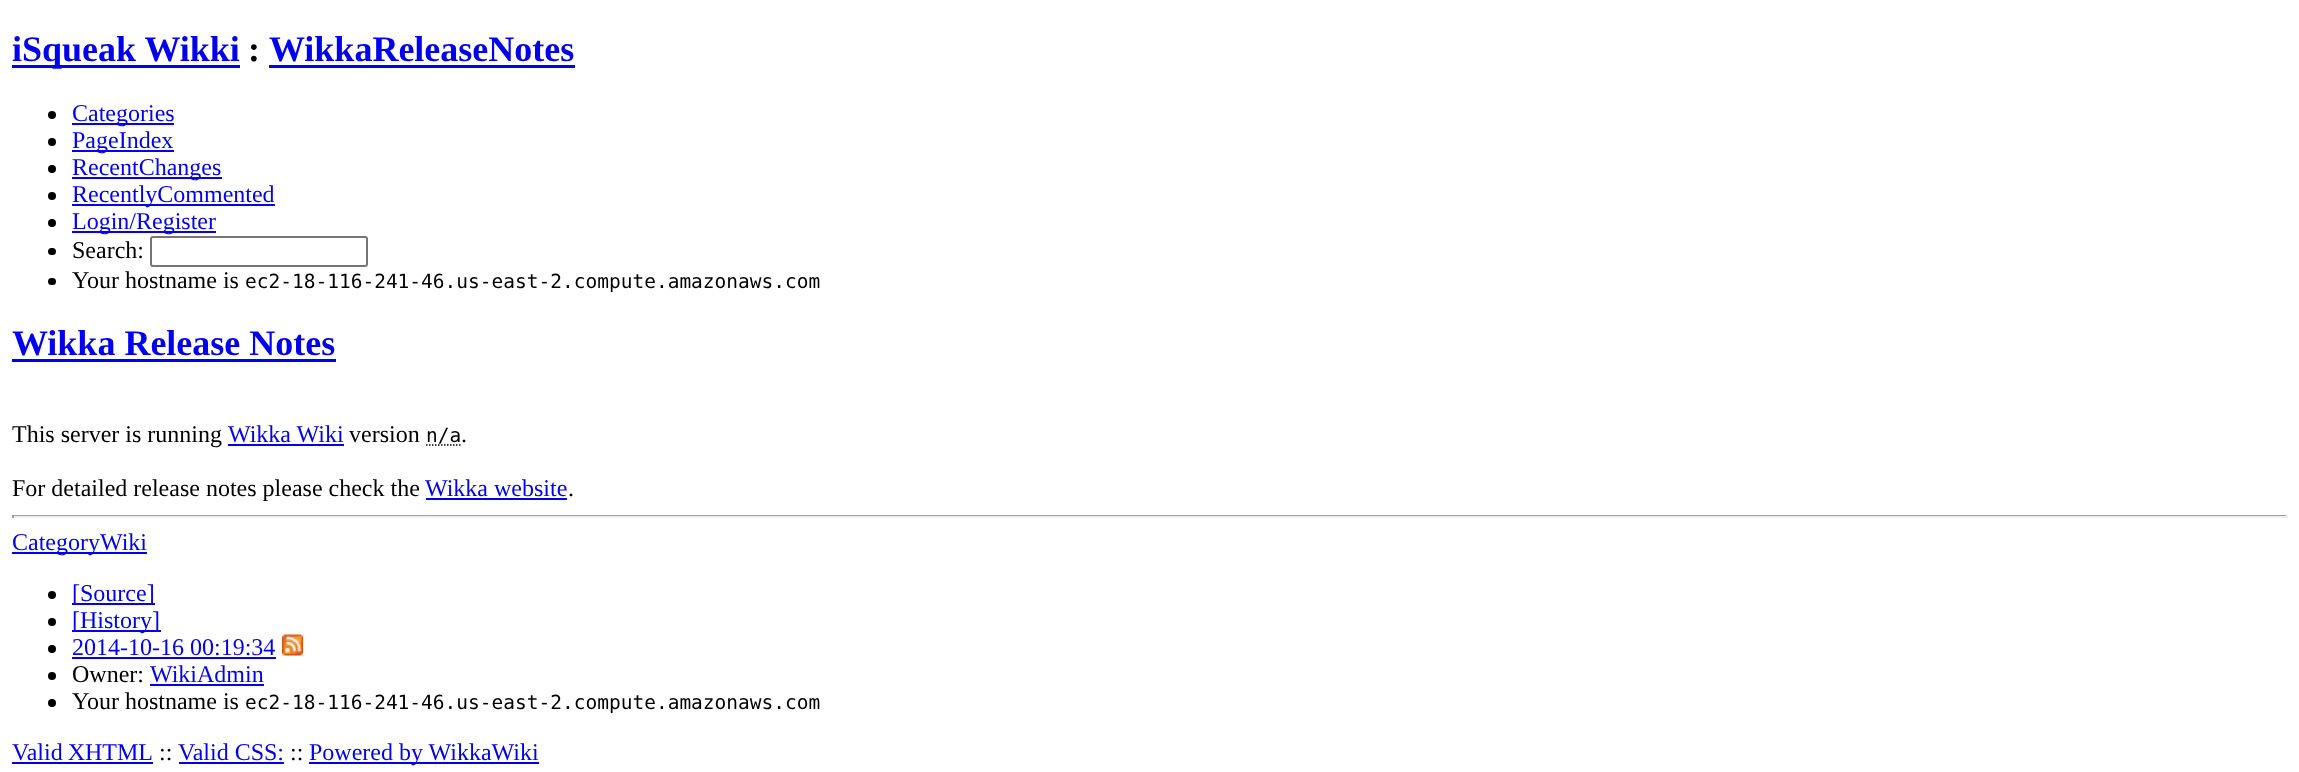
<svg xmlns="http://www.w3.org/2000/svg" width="2299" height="772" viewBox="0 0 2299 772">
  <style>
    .t1 { font: bold 36px Liberation Serif; fill: #00e; }
    .t2 { font: bold 36px Liberation Serif; fill: #000; }
    .t3 { font: 24px Liberation Serif; fill: #00e; }
    .t4 { font: 24px Liberation Serif; fill: #000; }
    .t5 { font: 19.5px DejaVu Sans Mono; fill: #000; }
  </style>
  <rect width="100%" height="100%" fill="#fff"/>
  <rect x="12" y="65" width="228" height="3" fill="#00e"/>
  <text x="12" y="61" class="t1">iSqueak Wikki</text>
  <text x="248" y="61" class="t2">:</text>
  <text x="269" y="61" class="t1">WikkaReleaseNotes</text>
  <rect x="269" y="65" width="306" height="3" fill="#00e"/>
  <circle cx="52" cy="115" r="4" fill="#000"/>
  <rect x="72" y="123" width="102" height="2" fill="#00e"/>
  <text x="72" y="121" class="t3">Categories</text>
  <circle cx="52" cy="142" r="4" fill="#000"/>
  <rect x="72" y="150" width="102" height="2" fill="#00e"/>
  <text x="72" y="148" class="t3">PageIndex</text>
  <circle cx="52" cy="169" r="4" fill="#000"/>
  <rect x="72" y="177" width="150" height="2" fill="#00e"/>
  <text x="72" y="175" class="t3">RecentChanges</text>
  <circle cx="52" cy="196" r="4" fill="#000"/>
  <rect x="72" y="204" width="203" height="2" fill="#00e"/>
  <text x="72" y="202" class="t3">RecentlyCommented</text>
  <circle cx="52" cy="223" r="4" fill="#000"/>
  <rect x="72" y="231" width="144" height="2" fill="#00e"/>
  <text x="72" y="229" class="t3">Login/Register</text>
  <rect x="48" y="248" width="8" height="7" rx="3.5" fill="#000"/>
  <text x="72" y="258" class="t4">Search:</text>
  <rect x="151" y="237" width="216" height="29" rx="2" fill="none" stroke="#767676" stroke-width="2"/>
  <rect x="48" y="278" width="8" height="7" rx="3.5" fill="#000"/>
  <text x="72" y="288" class="t4">Your hostname is</text>
  <text x="245" y="288" class="t5">ec2-18-116-241-46.us-east-2.compute.amazonaws.com</text>
  <text x="12" y="355" class="t1">Wikka Release Notes</text>
  <rect x="12" y="359" width="324" height="3" fill="#00e"/>
  <text x="12" y="442" class="t4">This server is running</text>
  <text x="228" y="442" class="t3">Wikka Wiki</text>
  <rect x="228" y="444" width="116" height="2" fill="#00e"/>
  <text x="349" y="442" class="t4">version</text>
  <text x="426" y="442" class="t5">n/a</text>
  <path d="M426 445H461" fill="none" stroke="#000" stroke-width="1.5" stroke-dasharray="1.5 1.5"/>
  <text x="461" y="442" class="t4">.</text>
  <text x="12" y="496" class="t4">For detailed release notes please check the</text>
  <text x="425" y="496" class="t3">Wikka website</text>
  <rect x="426" y="498" width="141" height="2" fill="#00e"/>
  <text x="568" y="496" class="t4">.</text>
  <rect x="12" y="515" width="2276" height="1" fill="#9f9f9f"/>
  <rect x="2286" y="515" width="2" height="3" fill="#eee"/>
  <rect x="12" y="516" width="2276" height="2" fill="#eee"/>
  <rect x="12" y="515" width="2" height="3" fill="#9f9f9f"/>
  <rect x="12" y="552" width="135" height="2" fill="#00e"/>
  <text x="12" y="550" class="t3">CategoryWiki</text>
  <circle cx="52" cy="595" r="4" fill="#000"/>
  <rect x="72" y="603" width="83" height="2" fill="#00e"/>
  <text x="72" y="601" class="t3">[Source]</text>
  <circle cx="52" cy="622" r="4" fill="#000"/>
  <rect x="72" y="630" width="89" height="2" fill="#00e"/>
  <text x="72" y="628" class="t3">[History]</text>
  <circle cx="52" cy="649" r="4" fill="#000"/>
  <text x="72" y="655" class="t3">2014-10-16 00:19:34</text>
  <rect x="72" y="657" width="204" height="2" fill="#00e"/>
  <image x="282" y="634" width="21" height="22" href="images/1.png"/>
  <circle cx="52" cy="676" r="4" fill="#000"/>
  <text x="72" y="682" class="t4">Owner:</text>
  <text x="150" y="682" class="t3">WikiAdmin</text>
  <rect x="150" y="684" width="114" height="2" fill="#00e"/>
  <circle cx="52" cy="703" r="4" fill="#000"/>
  <text x="72" y="709" class="t4">Your hostname is</text>
  <text x="245" y="709" class="t5">ec2-18-116-241-46.us-east-2.compute.amazonaws.com</text>
  <text x="12" y="760" word-spacing="-1" class="t3">Valid XHTML</text>
  <rect x="12" y="762" width="141" height="2" fill="#00e"/>
  <text x="159" y="760" class="t4">::</text>
  <text x="178" y="760" class="t3">Valid CSS:</text>
  <rect x="179" y="762" width="105" height="2" fill="#00e"/>
  <text x="290" y="760" class="t4">::</text>
  <rect x="309" y="762" width="230" height="2" fill="#00e"/>
  <text x="309" y="760" class="t3">Powered by WikkaWiki</text>
</svg>
